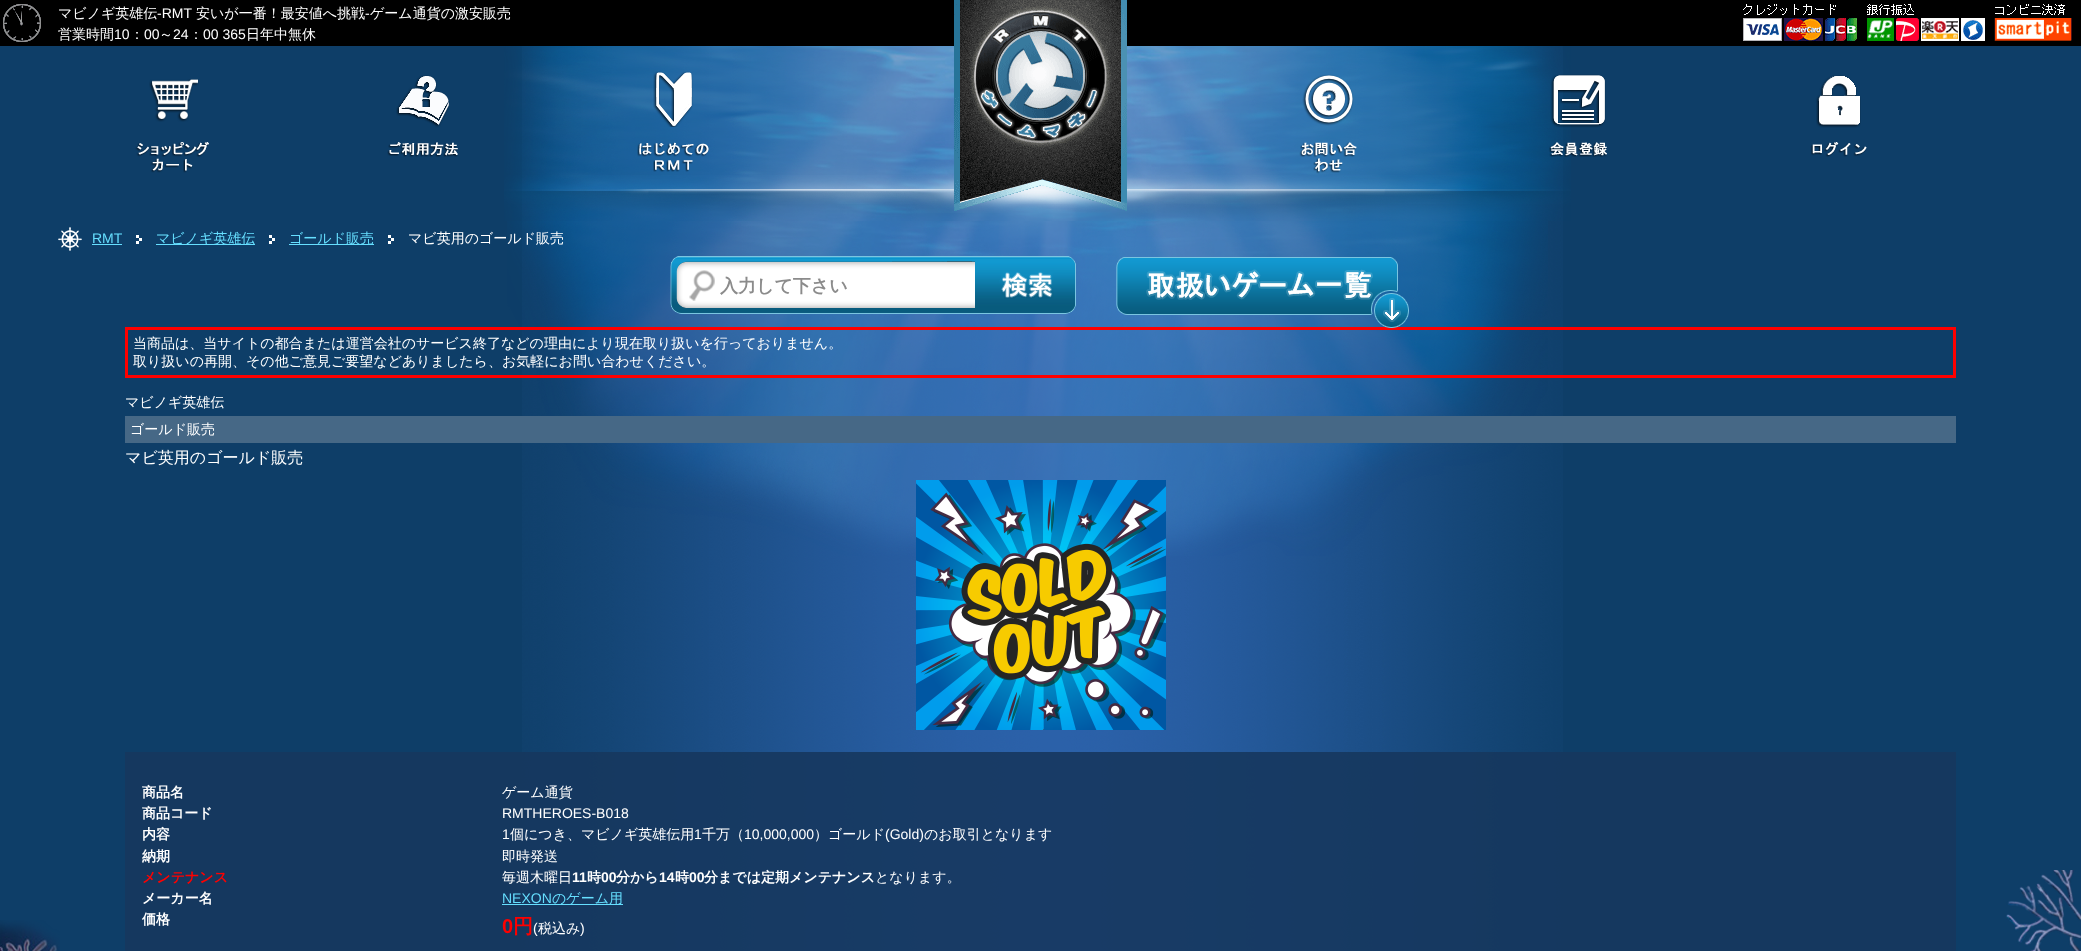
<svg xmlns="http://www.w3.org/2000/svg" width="2081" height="951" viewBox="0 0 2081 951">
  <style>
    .t1 { font: 500 14px WenQuanYi Zen Hei; fill: #fff; }
    .t2 { font: 14px Liberation Sans; fill: #fff; }
    .t3 { font: 14px Liberation Sans; fill: #66dfff; }
    .t4 { font: 500 14px WenQuanYi Zen Hei; fill: #66dfff; }
    .t5 { font: bold 18px WenQuanYi Zen Hei; fill: #8b8b8b; }
    .t6 { font: 500 16px WenQuanYi Zen Hei; fill: #fff; }
    .t7 { font: bold 14px WenQuanYi Zen Hei; fill: #fff; }
    .t8 { font: bold 14px WenQuanYi Zen Hei; fill: #f00; }
    .t9 { font: bold 14px Liberation Sans; fill: #fff; }
    .t10 { font: bold 20px Liberation Sans; fill: #f00; }
    .t11 { font: bold 20px WenQuanYi Zen Hei; fill: #f00; }
  </style>
  <rect width="100%" height="100%" fill="#0e3e68"/>
  <image x="522" y="46" width="1041" height="175" href="images/1.png"/>
  <rect x="0" y="0" width="2081" height="46" fill="#000"/>
  <image x="3" y="4" width="38" height="38" href="images/2.png"/>
  <text x="58" y="18" class="t1">マビノギ英雄伝</text>
  <text x="157" y="18" class="t2">-RMT</text>
  <text x="196" y="18" class="t1">安いが一番！最安値へ挑戦</text>
  <text x="365" y="18" class="t2">-</text>
  <text x="370" y="18" class="t1">ゲーム通貨の激安販売</text>
  <text x="58" y="39" class="t1">営業時間</text>
  <text x="114" y="39" class="t2">10</text>
  <text x="130" y="39" class="t1">：</text>
  <text x="144" y="39" class="t2">00</text>
  <text x="159" y="39" class="t1">～</text>
  <text x="173" y="39" class="t2">24</text>
  <text x="189" y="39" class="t1">：</text>
  <text x="203" y="39" class="t2">00 365</text>
  <text x="246" y="39" class="t1">日年中無休</text>
  <image x="504" y="46" width="1067" height="175" href="images/5.png"/>
  <image x="954" y="0" width="173" height="211" href="images/3.png"/>
  <image x="1743" y="4" width="329" height="37" href="images/4.png"/>
  <image x="135" y="79" width="74" height="94" href="images/6.png"/>
  <image x="387" y="75" width="71" height="82" href="images/7.png"/>
  <image x="637" y="71" width="72" height="101" href="images/8.png"/>
  <image x="1299" y="74" width="58" height="100" href="images/9.png"/>
  <image x="1549" y="74" width="58" height="83" href="images/10.png"/>
  <image x="1810" y="75" width="57" height="82" href="images/11.png"/>
  <image x="522" y="221" width="1041" height="730" href="images/12.png"/>
  <image x="507" y="221" width="1041" height="335" href="images/13.png"/>
  <image x="58" y="227" width="24" height="24" href="images/14.png"/>
  <text x="92" y="243" class="t3">RMT</text>
  <rect x="92" y="244" width="30" height="1" fill="#66dfff"/>
  <image x="136" y="235" width="6" height="9" href="images/15.png"/>
  <rect x="156" y="244" width="99" height="1" fill="#66dfff"/>
  <text x="156" y="243" class="t4">マビノギ英雄伝</text>
  <image x="269" y="235" width="6" height="9" href="images/15.png"/>
  <rect x="289" y="244" width="85" height="1" fill="#66dfff"/>
  <text x="289" y="243" class="t4">ゴールド販売</text>
  <image x="388" y="235" width="6" height="9" href="images/15.png"/>
  <text x="408" y="243" class="t1">マビ英用のゴールド販売</text>
  <image x="670" y="256" width="309" height="58" href="images/16.png"/>
  <text x="720" y="292" class="t5">入力して下さい</text>
  <image x="979" y="256" width="97" height="58" href="images/17.png"/>
  <rect x="126.5" y="328.5" width="1828" height="48" fill="none" stroke="#f00" stroke-width="3"/>
  <image x="1116" y="257" width="293" height="71" href="images/18.png"/>
  <text x="133" y="348" class="t1">当商品は、当サイトの都合または運営会社のサービス終了などの理由により現在取り扱いを行っておりません。</text>
  <text x="133" y="366" class="t1">取り扱いの再開、その他ご意見ご要望などありましたら、お気軽にお問い合わせください。</text>
  <text x="125" y="407" class="t1">マビノギ英雄伝</text>
  <rect x="125" y="416" width="1831" height="27" fill="#466886"/>
  <text x="130" y="434" class="t1">ゴールド販売</text>
  <text x="125" y="463" class="t6">マビ英用のゴールド販売</text>
  <image x="916" y="480" width="250" height="250" href="images/19.png"/>
  <rect x="125" y="752" width="1831" height="199" fill="#16375ee6"/>
  <text x="142" y="797" class="t7">商品名</text>
  <text x="502" y="797" class="t1">ゲーム通貨</text>
  <text x="142" y="818" class="t7">商品コード</text>
  <text x="502" y="818" class="t2">RMTHEROES-B018</text>
  <text x="142" y="839" class="t7">内容</text>
  <text x="502" y="839" class="t2">1</text>
  <text x="510" y="839" class="t1">個につき、マビノギ英雄伝用</text>
  <text x="694" y="839" class="t2">1</text>
  <text x="702" y="839" class="t1">千万（</text>
  <text x="744" y="839" class="t2">10,000,000</text>
  <text x="814" y="839" class="t1">）ゴールド</text>
  <text x="885" y="839" class="t2">(Gold)</text>
  <text x="924" y="839" class="t1">のお取引となります</text>
  <text x="142" y="861" class="t7">納期</text>
  <text x="502" y="861" class="t1">即時発送</text>
  <text x="142" y="882" class="t8">メンテナンス</text>
  <text x="502" y="882" class="t1">毎週木曜日</text>
  <text x="572" y="882" class="t9">11</text>
  <text x="587" y="882" class="t7">時</text>
  <text x="601" y="882" class="t9">00</text>
  <text x="616" y="882" class="t7">分から</text>
  <text x="659" y="882" class="t9">14</text>
  <text x="675" y="882" class="t7">時</text>
  <text x="689" y="882" class="t9">00</text>
  <text x="704" y="882" class="t7">分までは定期メンテナンス</text>
  <text x="875" y="882" class="t1">となります。</text>
  <text x="142" y="903" class="t7">メーカー名</text>
  <text x="502" y="903" class="t3">NEXON</text>
  <rect x="502" y="904" width="121" height="1" fill="#66dfff"/>
  <text x="552" y="903" class="t4">のゲーム用</text>
  <text x="142" y="924" class="t7">価格</text>
  <text x="502" y="933" class="t10">0</text>
  <text x="513" y="933" class="t11">円</text>
  <text x="533" y="933" class="t2">(</text>
  <text x="538" y="933" class="t1">税込み</text>
  <text x="580" y="933" class="t2">)</text>
  <image x="0" y="920" width="60" height="31" href="images/20.png"/>
  <image x="2006" y="870" width="75" height="81" href="images/21.png"/>
</svg>
